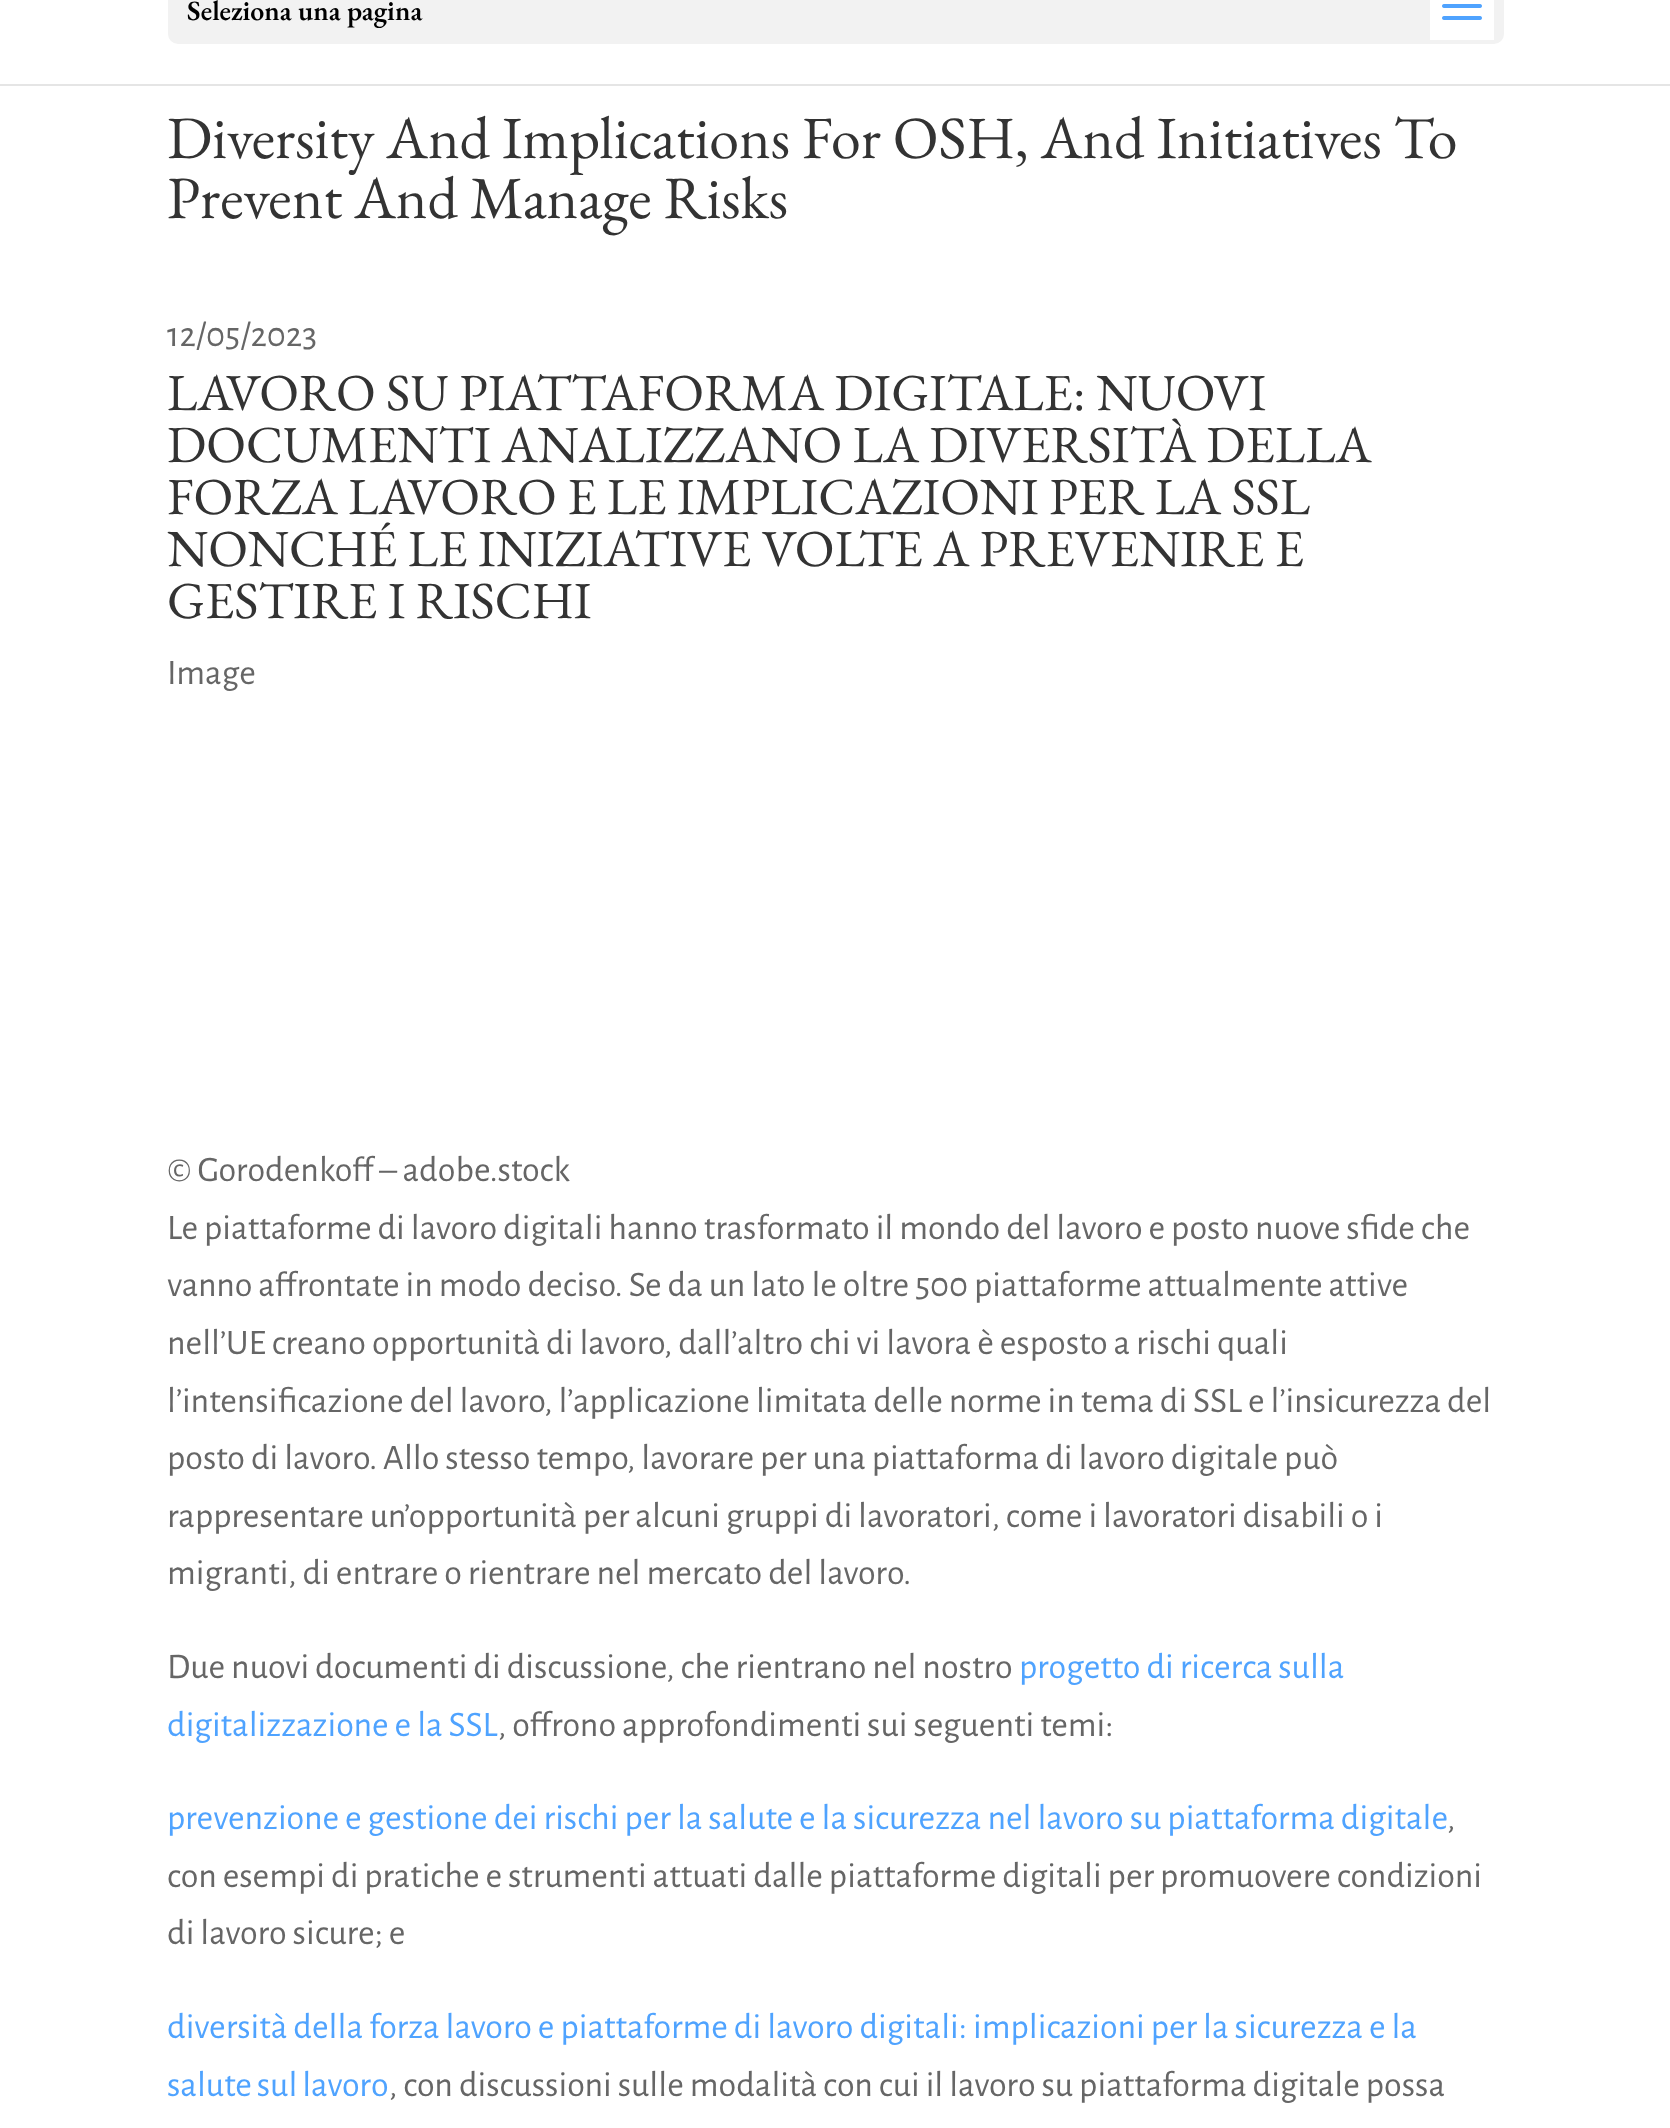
<svg xmlns="http://www.w3.org/2000/svg" width="1670" height="2128" viewBox="0 0 1670 2128">
  <style>
    .t1 { font: 600 28px EB Garamond; fill: #000; }
    .t2 { font: 60px EB Garamond; fill: #333; }
    .t3 { font: 36px Alegreya Sans; fill: #666; }
    .t4 { font: 52px EB Garamond; fill: #333; }
    .t5 { font: 36px Alegreya Sans; fill: #4fa3ff; }
  </style>
  <rect width="100%" height="100%" fill="#fff"/>
  <rect x="0" y="84" width="1670" height="2" fill="#0000001a"/>
  <rect x="168" y="-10" width="1336" height="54" rx="10" fill="#f2f2f2"/>
  <text x="187" y="20" class="t1">Seleziona una pagina</text>
  <rect x="1430" y="0" width="64" height="40" fill="#fff"/>
  <image x="1442" y="4" width="40" height="16" href="images/1.png"/>
  <text x="167" y="158" class="t2">Diversity And Implications For OSH, And Initiatives To</text>
  <text x="167" y="218" class="t2">Prevent And Manage Risks</text>
  <text x="167" y="346" class="t3">12/05/2023</text>
  <text x="167" y="410" class="t4">LAVORO SU PIATTAFORMA DIGITALE: NUOVI</text>
  <text x="167" y="462" class="t4">DOCUMENTI ANALIZZANO LA DIVERSITÀ DELLA</text>
  <text x="167" y="514" class="t4">FORZA LAVORO E LE IMPLICAZIONI PER LA SSL</text>
  <text x="167" y="566" class="t4">NONCHÉ LE INIZIATIVE VOLTE A PREVENIRE E</text>
  <text x="167" y="618" class="t4">GESTIRE I RISCHI</text>
  <text x="167" y="684" class="t3">Image</text>
  <text x="167" y="1181" class="t3">© Gorodenkoff – adobe.stock</text>
  <text x="167" y="1239" class="t3">Le piattaforme di lavoro digitali hanno trasformato il mondo del lavoro e posto nuove sfide che</text>
  <text x="167" y="1296" class="t3">vanno affrontate in modo deciso. Se da un lato le oltre 500 piattaforme attualmente attive</text>
  <text x="167" y="1354" class="t3">nell’UE creano opportunità di lavoro, dall’altro chi vi lavora è esposto a rischi quali</text>
  <text x="167" y="1412" class="t3">l’intensificazione del lavoro, l’applicazione limitata delle norme in tema di SSL e l’insicurezza del</text>
  <text x="167" y="1469" class="t3">posto di lavoro. Allo stesso tempo, lavorare per una piattaforma di lavoro digitale può</text>
  <text x="167" y="1527" class="t3">rappresentare un’opportunità per alcuni gruppi di lavoratori, come i lavoratori disabili o i</text>
  <text x="167" y="1584" class="t3">migranti, di entrare o rientrare nel mercato del lavoro.</text>
  <text x="167" y="1678" class="t3">Due nuovi documenti di discussione, che rientrano nel nostro</text>
  <text x="1019" y="1678" class="t5">progetto di ricerca sulla</text>
  <text x="167" y="1736" class="t5">digitalizzazione e la SSL</text>
  <text x="498" y="1736" class="t3">, offrono approfondimenti sui seguenti temi:</text>
  <text x="167" y="1829" class="t5">prevenzione e gestione dei rischi per la salute e la sicurezza nel lavoro su piattaforma digitale</text>
  <text x="1447" y="1829" class="t3">,</text>
  <text x="167" y="1887" class="t3">con esempi di pratiche e strumenti attuati dalle piattaforme digitali per promuovere condizioni</text>
  <text x="167" y="1944" class="t3">di lavoro sicure; e</text>
  <text x="167" y="2038" class="t5">diversità della forza lavoro e piattaforme di lavoro digitali: implicazioni per la sicurezza e la</text>
  <text x="167" y="2096" word-spacing="-1" class="t5">salute sul lavoro</text>
  <text x="389" y="2096" class="t3">, con discussioni sulle modalità con cui il lavoro su piattaforma digitale possa</text>
</svg>
